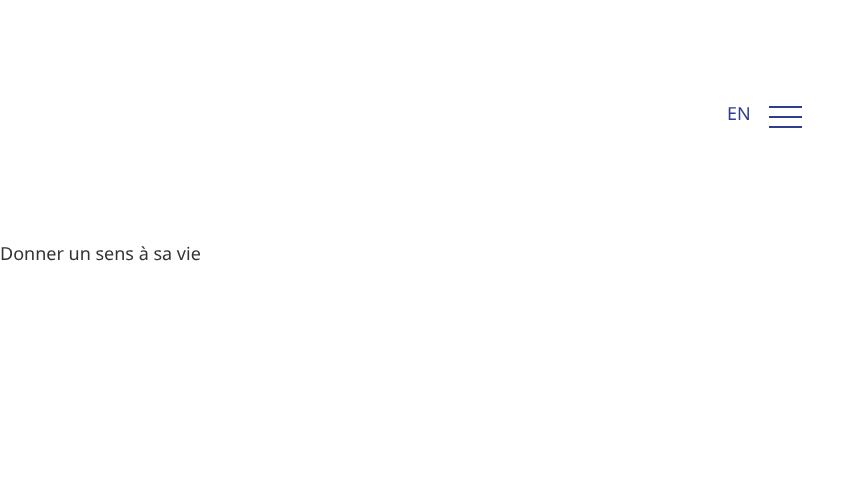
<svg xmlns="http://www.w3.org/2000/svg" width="862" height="503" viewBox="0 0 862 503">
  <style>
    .t1 { font: 18px Noto Sans; fill: #303d8c; }
    .t2 { font: 18px Noto Sans; fill: #333; }
  </style>
  <rect width="100%" height="100%" fill="#fff"/>
  <text x="727" y="120" class="t1">EN</text>
  <rect x="769" y="106" width="33" height="2" fill="#303d8c"/>
  <rect x="769" y="116" width="33" height="2" fill="#303d8c"/>
  <rect x="769" y="126" width="33" height="2" fill="#303d8c"/>
  <text x="0" y="260" class="t2">Donner un sens à sa vie</text>
</svg>
